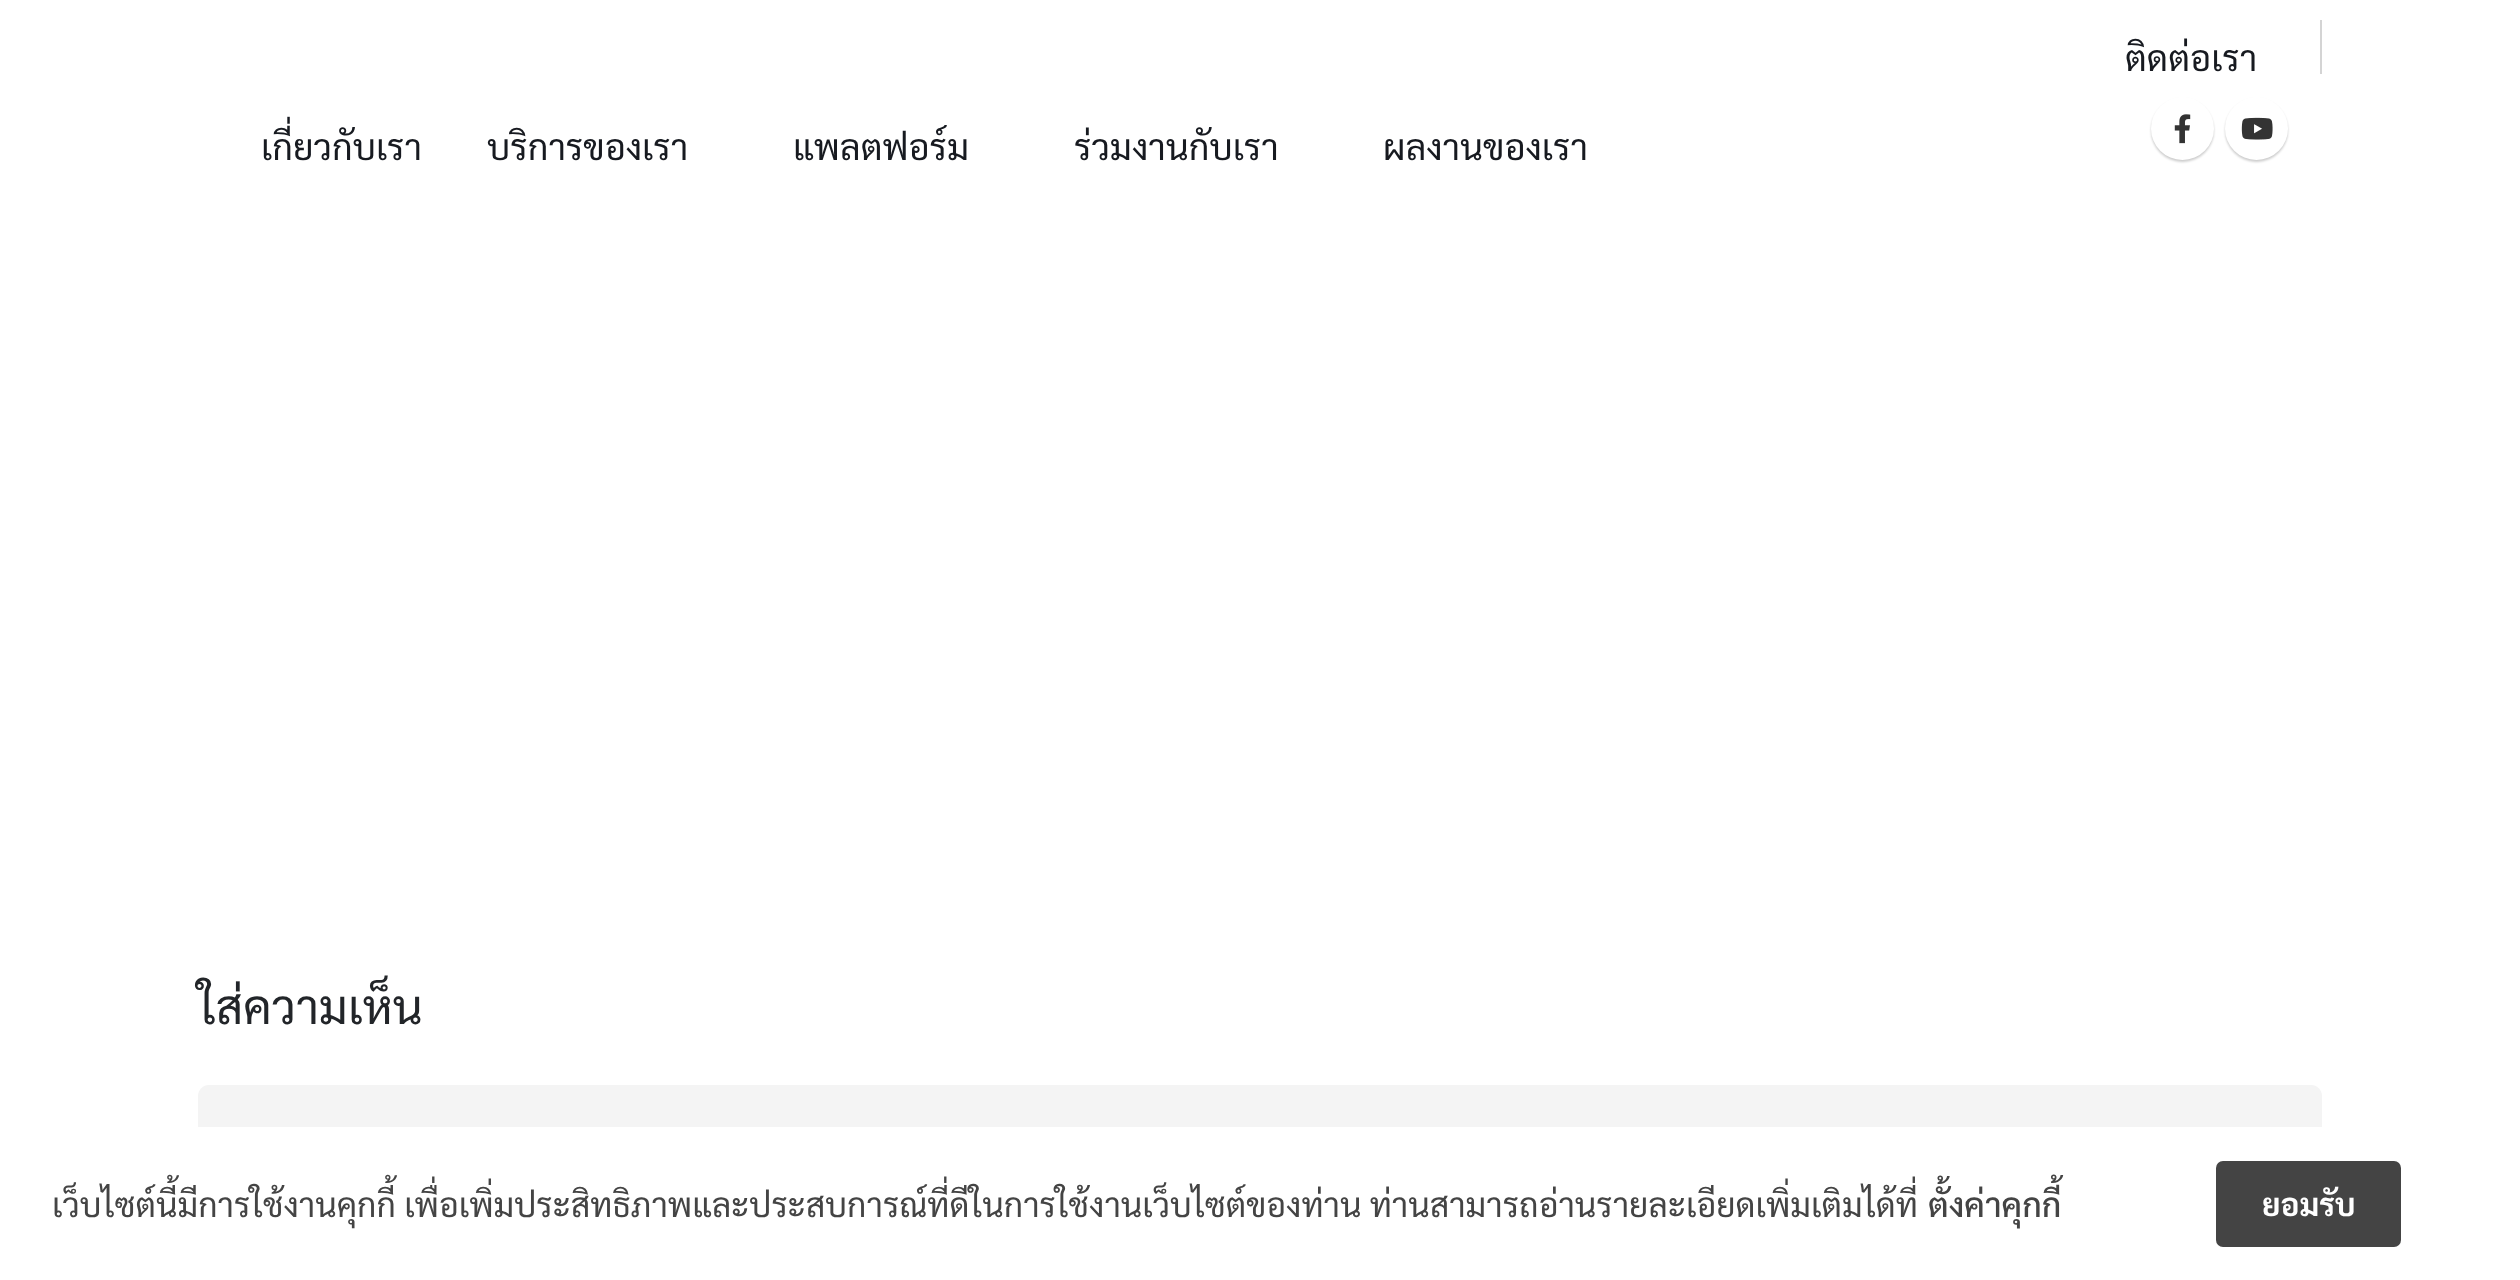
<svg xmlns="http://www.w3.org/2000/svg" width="2520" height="1280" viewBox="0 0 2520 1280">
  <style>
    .t1 { font: 36px Sarabun; fill: #171a20; }
    .t2 { font: 47.25px Sarabun; fill: #222529; }
    .t3 { font: 33.75px Sarabun; fill: #444; }
    .t4 { font: 500 33.75px Sarabun; fill: #444; }
    .t5 { font: bold 31.5px Sarabun; fill: #fff; }
  </style>
  <rect width="100%" height="100%" fill="#fff"/>
  <text x="2125" y="71" class="t1">ติดต่อเรา</text>
  <rect x="2320" y="20" width="2" height="54" fill="#d4d4d4"/>
  <rect x="2151" y="99" width="63" height="63" rx="31.5" fill="#00000033" filter="blur(1px)"/>
  <circle cx="2182.5" cy="128.5" r="31.5" fill="#fff"/>
  <image x="2174" y="114" width="17" height="30" href="images/1.png"/>
  <rect x="2225" y="99" width="63" height="63" rx="31.5" fill="#00000033" filter="blur(1px)"/>
  <circle cx="2256.5" cy="128.5" r="31.5" fill="#fff"/>
  <image x="2241" y="117" width="32" height="23" href="images/2.png"/>
  <text x="261" y="160" class="t1">เกี่ยวกับเรา</text>
  <text x="487" y="160" class="t1">บริการของเรา</text>
  <text x="793" y="160" class="t1">แพลตฟอร์ม</text>
  <text x="1074" y="160" class="t1">ร่วมงานกับเรา</text>
  <text x="1383" y="160" class="t1">ผลงานของเรา</text>
  <text x="198" y="1024" class="t2">ใส่ความเห็น</text>
  <rect x="198" y="1085" width="2124" height="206" rx="11" fill="#f4f4f4"/>
  <rect x="198" y="1127" width="2124" height="153" fill="#fff"/>
  <text x="52" y="1217" class="t3">เว็บไซต์นี้มีการใช้งานคุกกี้ เพื่อเพิ่มประสิทธิภาพและประสบการณ์ที่ดีในการใช้งานเว็บไซต์ของท่าน ท่านสามารถอ่านรายละเอียดเพิ่มเติมได้ที่</text>
  <text x="1928" y="1217" class="t4">ตั้งค่าคุกกี้</text>
  <rect x="2216" y="1161" width="185" height="86" rx="7" fill="#444"/>
  <text x="2262" y="1216" class="t5">ยอมรับ</text>
</svg>
